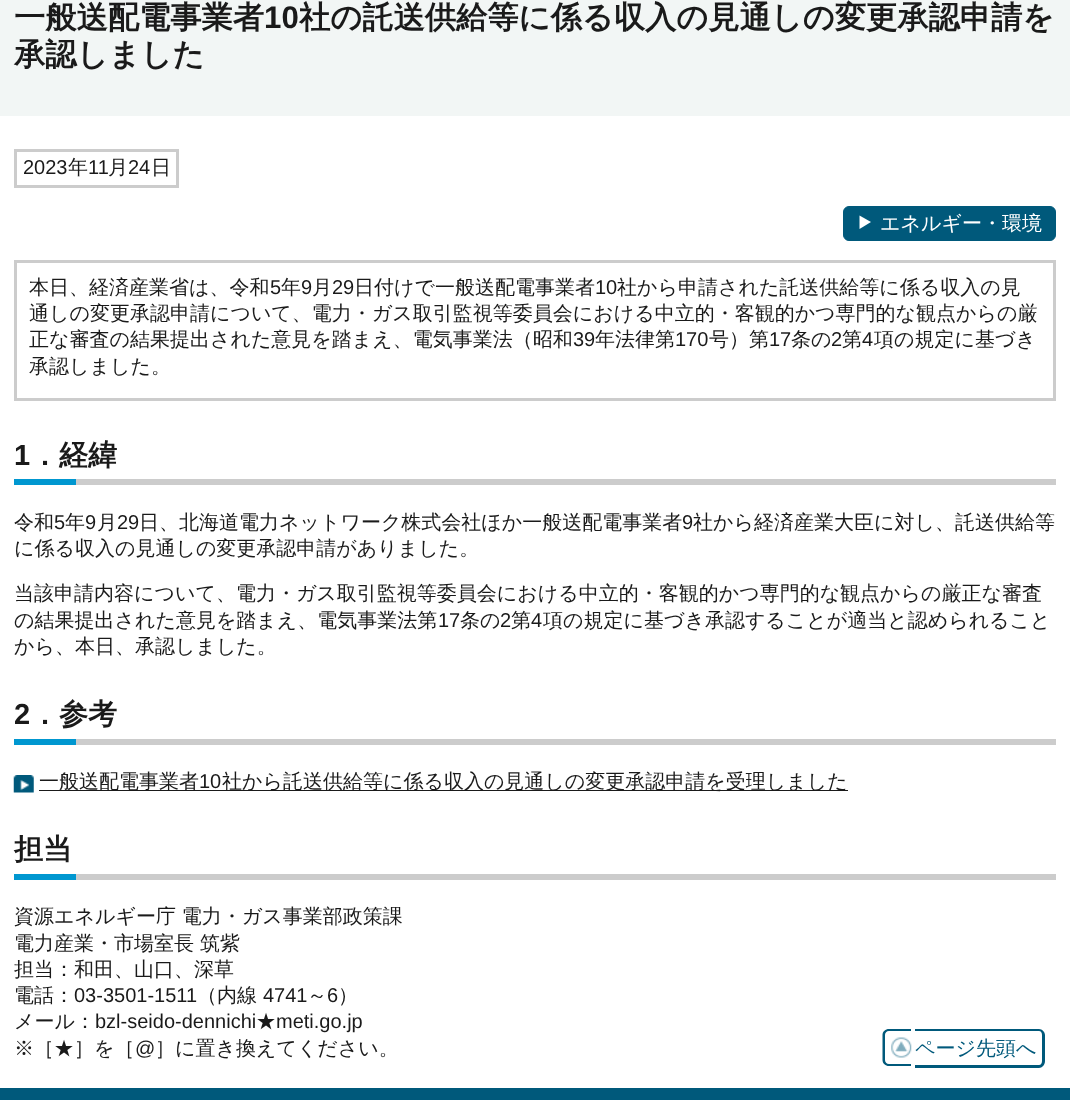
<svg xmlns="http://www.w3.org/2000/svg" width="1070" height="1100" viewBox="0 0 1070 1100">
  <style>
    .t1 { font: bold 31.25px WenQuanYi Zen Hei; fill: #1a1a1a; }
    .t2 { font: bold 31.25px Liberation Sans; fill: #1a1a1a; }
    .t3 { font: 20px Liberation Sans; fill: #1a1a1a; }
    .t4 { font: 500 20px WenQuanYi Zen Hei; fill: #1a1a1a; }
    .t5 { font: 500 20px WenQuanYi Zen Hei; fill: #fff; }
    .t6 { font: bold 29px Liberation Sans; fill: #1a1a1a; }
    .t7 { font: bold 29px WenQuanYi Zen Hei; fill: #1a1a1a; }
    .t8 { font: 500 20px WenQuanYi Zen Hei; fill: #00597b; }
  </style>
  <rect width="100%" height="100%" fill="#fff"/>
  <rect x="0" y="0" width="1070" height="116" fill="#f2f6f5"/>
  <text x="14" y="28" class="t1">一般送配電事業者</text>
  <text x="264" y="28" class="t2">10</text>
  <text x="299" y="28" class="t1">社の託送供給等に係る収入の見通しの変更承認申請を</text>
  <text x="14" y="65" class="t1">承認しました</text>
  <rect x="15.5" y="150.5" width="162" height="36" fill="none" stroke="#ccc" stroke-width="3"/>
  <text x="23" y="174" class="t3">2023</text>
  <text x="68" y="174" class="t4">年</text>
  <text x="88" y="174" class="t3">11</text>
  <text x="108" y="174" class="t4">月</text>
  <text x="128" y="174" class="t3">24</text>
  <text x="151" y="174" class="t4">日</text>
  <rect x="843.5" y="206.5" width="212" height="34" rx="5.5" fill="#00597b" stroke="#00597b"/>
  <path d="M859.5 215.5L871 222L859.5 229Z" fill="#fff"/>
  <text x="880" y="230" class="t5">エネルギー・環境</text>
  <rect x="15.5" y="261.5" width="1039" height="138" fill="none" stroke="#ccc" stroke-width="3"/>
  <text x="29" y="294" class="t4">本日、経済産業省は、令和</text>
  <text x="270" y="294" class="t3">5</text>
  <text x="281" y="294" class="t4">年</text>
  <text x="301" y="294" class="t3">9</text>
  <text x="312" y="294" class="t4">月</text>
  <text x="332" y="294" class="t3">29</text>
  <text x="354" y="294" class="t4">日付けで一般送配電事業者</text>
  <text x="595" y="294" class="t3">10</text>
  <text x="617" y="294" class="t4">社から申請された託送供給等に係る収入の見</text>
  <text x="29" y="320" class="t4">通しの変更承認申請について、電力・ガス取引監視等委員会における中立的・客観的かつ専門的な観点からの厳</text>
  <text x="29" y="346" class="t4">正な審査の結果提出された意見を踏まえ、電気事業法（昭和</text>
  <text x="573" y="346" class="t3">39</text>
  <text x="595" y="346" class="t4">年法律第</text>
  <text x="675" y="346" class="t3">170</text>
  <text x="709" y="346" class="t4">号）第</text>
  <text x="769" y="346" class="t3">17</text>
  <text x="791" y="346" class="t4">条の</text>
  <text x="831" y="346" class="t3">2</text>
  <text x="842" y="346" class="t4">第</text>
  <text x="862" y="346" class="t3">4</text>
  <text x="874" y="346" class="t4">項の規定に基づき</text>
  <text x="29" y="373" class="t4">承認しました。</text>
  <rect x="76" y="479" width="980" height="6" fill="#ccc"/>
  <text x="14" y="465" class="t6">1</text>
  <text x="30" y="465" class="t7">．経緯</text>
  <rect x="14" y="479" width="62" height="6" fill="#0097d0"/>
  <text x="14" y="529" class="t4">令和</text>
  <text x="54" y="529" class="t3">5</text>
  <text x="65" y="529" class="t4">年</text>
  <text x="85" y="529" class="t3">9</text>
  <text x="97" y="529" class="t4">月</text>
  <text x="117" y="529" class="t3">29</text>
  <text x="139" y="529" class="t4">日、北海道電力ネットワーク株式会社ほか一般送配電事業者</text>
  <text x="682" y="529" class="t3">9</text>
  <text x="693" y="529" class="t4">社から経済産業大臣に対し、託送供給等</text>
  <text x="14" y="555" class="t4">に係る収入の見通しの変更承認申請がありました。</text>
  <text x="14" y="600" class="t4">当該申請内容について、電力・ガス取引監視等委員会における中立的・客観的かつ専門的な観点からの厳正な審査</text>
  <text x="14" y="627" class="t4">の結果提出された意見を踏まえ、電気事業法第</text>
  <text x="438" y="627" class="t3">17</text>
  <text x="460" y="627" class="t4">条の</text>
  <text x="500" y="627" class="t3">2</text>
  <text x="511" y="627" class="t4">第</text>
  <text x="531" y="627" class="t3">4</text>
  <text x="543" y="627" class="t4">項の規定に基づき承認することが適当と認められること</text>
  <text x="14" y="653" class="t4">から、本日、承認しました。</text>
  <rect x="76" y="739" width="980" height="6" fill="#ccc"/>
  <text x="14" y="724" class="t6">2</text>
  <text x="30" y="724" class="t7">．参考</text>
  <rect x="14" y="739" width="62" height="6" fill="#0097d0"/>
  <image x="13" y="775" width="21" height="18" href="images/1.png"/>
  <rect x="39" y="790" width="809" height="1" fill="#1a1a1a"/>
  <text x="39" y="788" class="t4">一般送配電事業者</text>
  <text x="199" y="788" class="t3">10</text>
  <text x="222" y="788" class="t4">社から託送供給等に係る収入の見通しの変更承認申請を受理しました</text>
  <rect x="76" y="874" width="980" height="6" fill="#ccc"/>
  <text x="14" y="859" class="t7">担当</text>
  <rect x="14" y="874" width="62" height="6" fill="#0097d0"/>
  <text x="14" y="923" class="t4">資源エネルギー庁 電力・ガス事業部政策課</text>
  <text x="14" y="950" class="t4">電力産業・市場室長 筑紫</text>
  <text x="14" y="976" class="t4">担当：和田、山口、深草</text>
  <text x="14" y="1002" class="t4">電話：</text>
  <text x="74" y="1002" class="t3">03-3501-1511</text>
  <text x="197" y="1002" class="t4">（内線</text>
  <text x="263" y="1002" class="t3">4741</text>
  <text x="307" y="1002" class="t4">～</text>
  <text x="327" y="1002" class="t3">6</text>
  <text x="338" y="1002" class="t4">）</text>
  <text x="14" y="1028" class="t4">メール：</text>
  <text x="95" y="1028" class="t3">bzl-seido-dennichi</text>
  <text x="256" y="1028" class="t4">★</text>
  <text x="276" y="1028" class="t3">meti.go.jp</text>
  <text x="14" y="1055" class="t4">※［★］を［</text>
  <text x="135" y="1055" class="t3">@</text>
  <text x="155" y="1055" class="t4">］に置き換えてください。</text>
  <path d="M889 1029H911V1066H889C885.5 1066 882.5 1063.5 882.5 1060V1035C882.5 1031.5 885.5 1029 889 1029ZM889 1031H911V1064H889C886.5 1064 885 1062 885 1060V1035C885 1033 886.5 1031 889 1031Z" fill="#00597b" fill-rule="evenodd"/>
  <image x="891" y="1037" width="21" height="21" href="images/2.png"/>
  <path d="M915 1029H1039C1042 1029 1045 1032 1045 1035V1061C1045 1065 1042 1068 1039 1068H915ZM915 1031H1039C1041 1031 1042 1033 1042 1035V1061C1042 1063 1041 1065 1039 1065H915Z" fill="#00597b" fill-rule="evenodd"/>
  <text x="915" y="1055" class="t8">ページ先頭へ</text>
  <rect x="0" y="1088" width="1070" height="12" fill="#00597b"/>
</svg>
